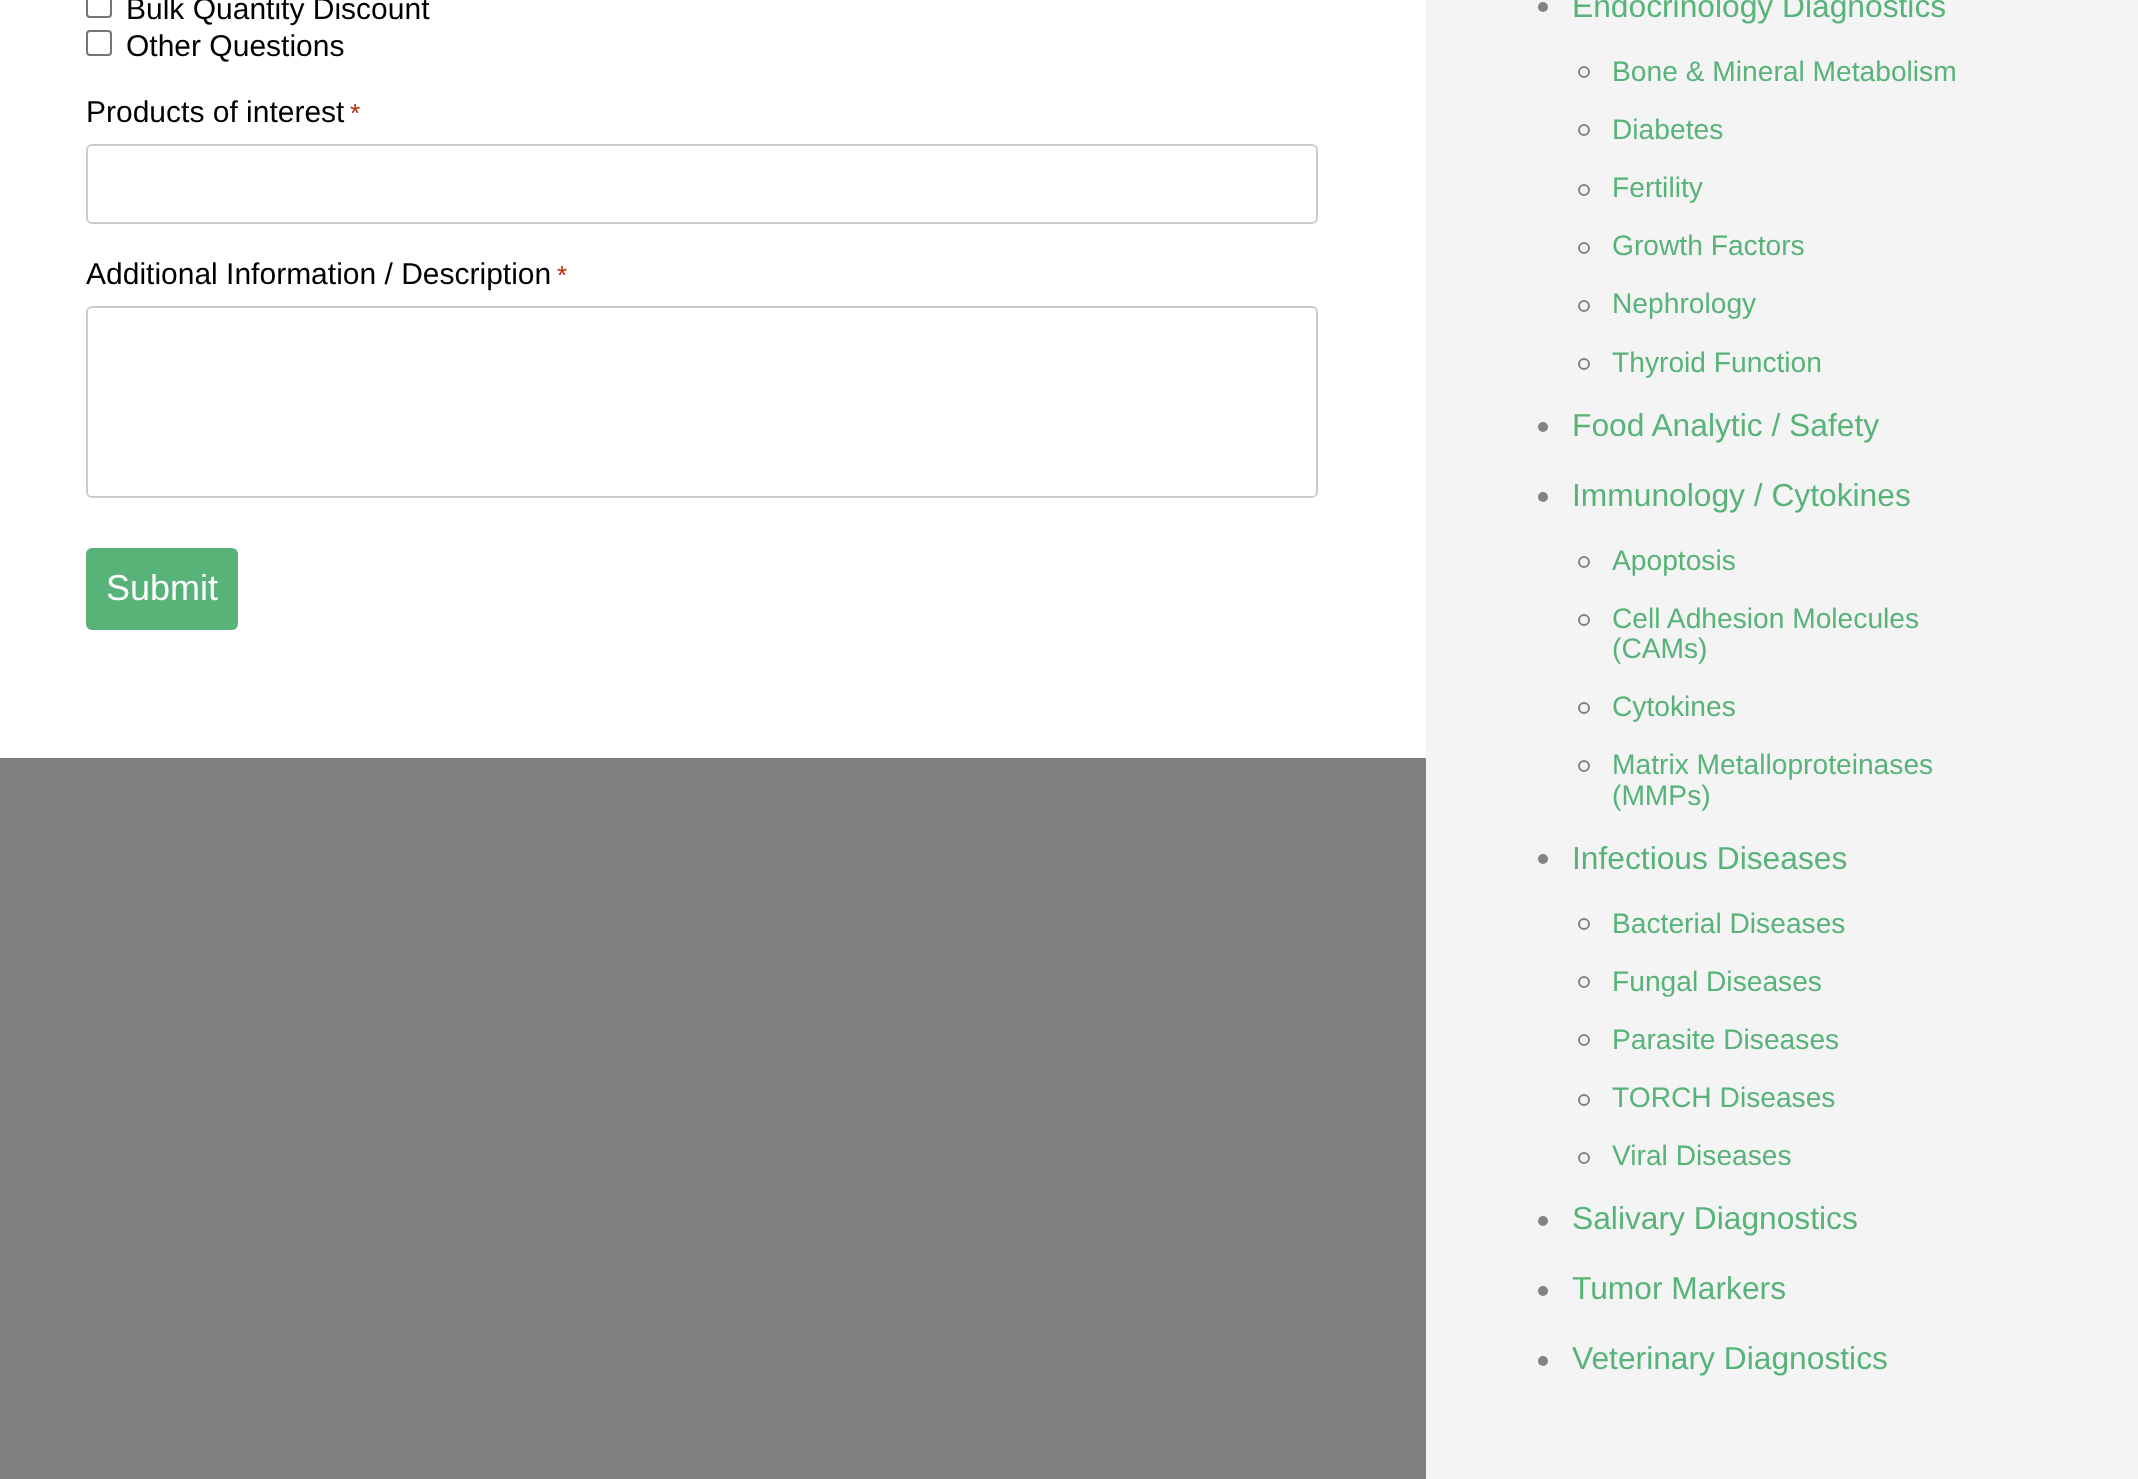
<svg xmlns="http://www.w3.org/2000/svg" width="2138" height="1479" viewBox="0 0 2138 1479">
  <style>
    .t1 { font: 30px Liberation Sans; fill: #000; }
    .t2 { font: 26px Liberation Sans; fill: #c02b0a; }
    .t3 { font: 36px Liberation Sans; fill: #fff; }
    .t4 { font: 31.75px Liberation Sans; fill: #58b379; }
    .t5 { font: 28.2px Liberation Sans; fill: #58b379; }
  </style>
  <rect width="100%" height="100%" fill="#808080"/>
  <rect x="0" y="0" width="1426" height="758" fill="#fff"/>
  <rect x="87" y="-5" width="24" height="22" rx="3" fill="none" stroke="#767676" stroke-width="2"/>
  <text x="126" y="19" class="t1">Bulk Quantity Discount</text>
  <rect x="87" y="31" width="24" height="24" rx="3" fill="none" stroke="#767676" stroke-width="2"/>
  <text x="126" y="56" class="t1">Other Questions</text>
  <text x="86" y="122" class="t1">Products of interest</text>
  <text x="350" y="122" class="t2">*</text>
  <rect x="87" y="145" width="1230" height="78" rx="5" fill="none" stroke="#ccc" stroke-width="2"/>
  <text x="86" y="284" class="t1">Additional Information / Description</text>
  <text x="557" y="284" class="t2">*</text>
  <rect x="87" y="307" width="1230" height="190" rx="5" fill="none" stroke="#ccc" stroke-width="2"/>
  <rect x="86" y="548" width="152" height="82" rx="6" fill="#58b379"/>
  <text x="106" y="600" class="t3">Submit</text>
  <rect x="1426" y="0" width="712" height="1479" fill="#f4f4f4"/>
  <circle cx="1543" cy="7" r="5" fill="#828386"/>
  <text x="1572" y="17" class="t4">Endocrinology Diagnostics</text>
  <circle cx="1584" cy="72" r="5" fill="none" stroke="#828386" stroke-width="2"/>
  <text x="1612" y="81" class="t5">Bone &amp; Mineral Metabolism</text>
  <circle cx="1584" cy="130" r="5" fill="none" stroke="#828386" stroke-width="2"/>
  <text x="1612" y="139" class="t5">Diabetes</text>
  <circle cx="1584" cy="190" r="5" fill="none" stroke="#828386" stroke-width="2"/>
  <text x="1612" y="197" class="t5">Fertility</text>
  <circle cx="1584" cy="248" r="5" fill="none" stroke="#828386" stroke-width="2"/>
  <text x="1612" y="255" class="t5">Growth Factors</text>
  <circle cx="1584" cy="306" r="5" fill="none" stroke="#828386" stroke-width="2"/>
  <text x="1612" y="313" class="t5">Nephrology</text>
  <circle cx="1584" cy="364" r="5" fill="none" stroke="#828386" stroke-width="2"/>
  <text x="1612" y="372" class="t5">Thyroid Function</text>
  <circle cx="1543" cy="427" r="5" fill="#828386"/>
  <text x="1572" y="436" class="t4">Food Analytic / Safety</text>
  <circle cx="1543" cy="497" r="5" fill="#828386"/>
  <text x="1572" y="506" class="t4">Immunology / Cytokines</text>
  <circle cx="1584" cy="562" r="5" fill="none" stroke="#828386" stroke-width="2"/>
  <text x="1612" y="570" class="t5">Apoptosis</text>
  <circle cx="1584" cy="620" r="5" fill="none" stroke="#828386" stroke-width="2"/>
  <text x="1612" y="628" class="t5">Cell Adhesion Molecules</text>
  <text x="1612" y="658" class="t5">(CAMs)</text>
  <circle cx="1584" cy="708" r="5" fill="none" stroke="#828386" stroke-width="2"/>
  <text x="1612" y="716" class="t5">Cytokines</text>
  <circle cx="1584" cy="766" r="5" fill="none" stroke="#828386" stroke-width="2"/>
  <text x="1612" y="774" class="t5">Matrix Metalloproteinases</text>
  <text x="1612" y="805" class="t5">(MMPs)</text>
  <circle cx="1543" cy="859" r="5" fill="#828386"/>
  <text x="1572" y="869" class="t4">Infectious Diseases</text>
  <circle cx="1584" cy="924" r="5" fill="none" stroke="#828386" stroke-width="2"/>
  <text x="1612" y="933" class="t5">Bacterial Diseases</text>
  <circle cx="1584" cy="982" r="5" fill="none" stroke="#828386" stroke-width="2"/>
  <text x="1612" y="991" class="t5">Fungal Diseases</text>
  <circle cx="1584" cy="1040" r="5" fill="none" stroke="#828386" stroke-width="2"/>
  <text x="1612" y="1049" class="t5">Parasite Diseases</text>
  <circle cx="1584" cy="1100" r="5" fill="none" stroke="#828386" stroke-width="2"/>
  <text x="1612" y="1107" class="t5">TORCH Diseases</text>
  <circle cx="1584" cy="1158" r="5" fill="none" stroke="#828386" stroke-width="2"/>
  <text x="1612" y="1165" class="t5">Viral Diseases</text>
  <circle cx="1543" cy="1221" r="5" fill="#828386"/>
  <text x="1572" y="1229" class="t4">Salivary Diagnostics</text>
  <circle cx="1543" cy="1291" r="5" fill="#828386"/>
  <text x="1572" y="1299" class="t4">Tumor Markers</text>
  <circle cx="1543" cy="1361" r="5" fill="#828386"/>
  <text x="1572" y="1369" class="t4">Veterinary Diagnostics</text>
</svg>
